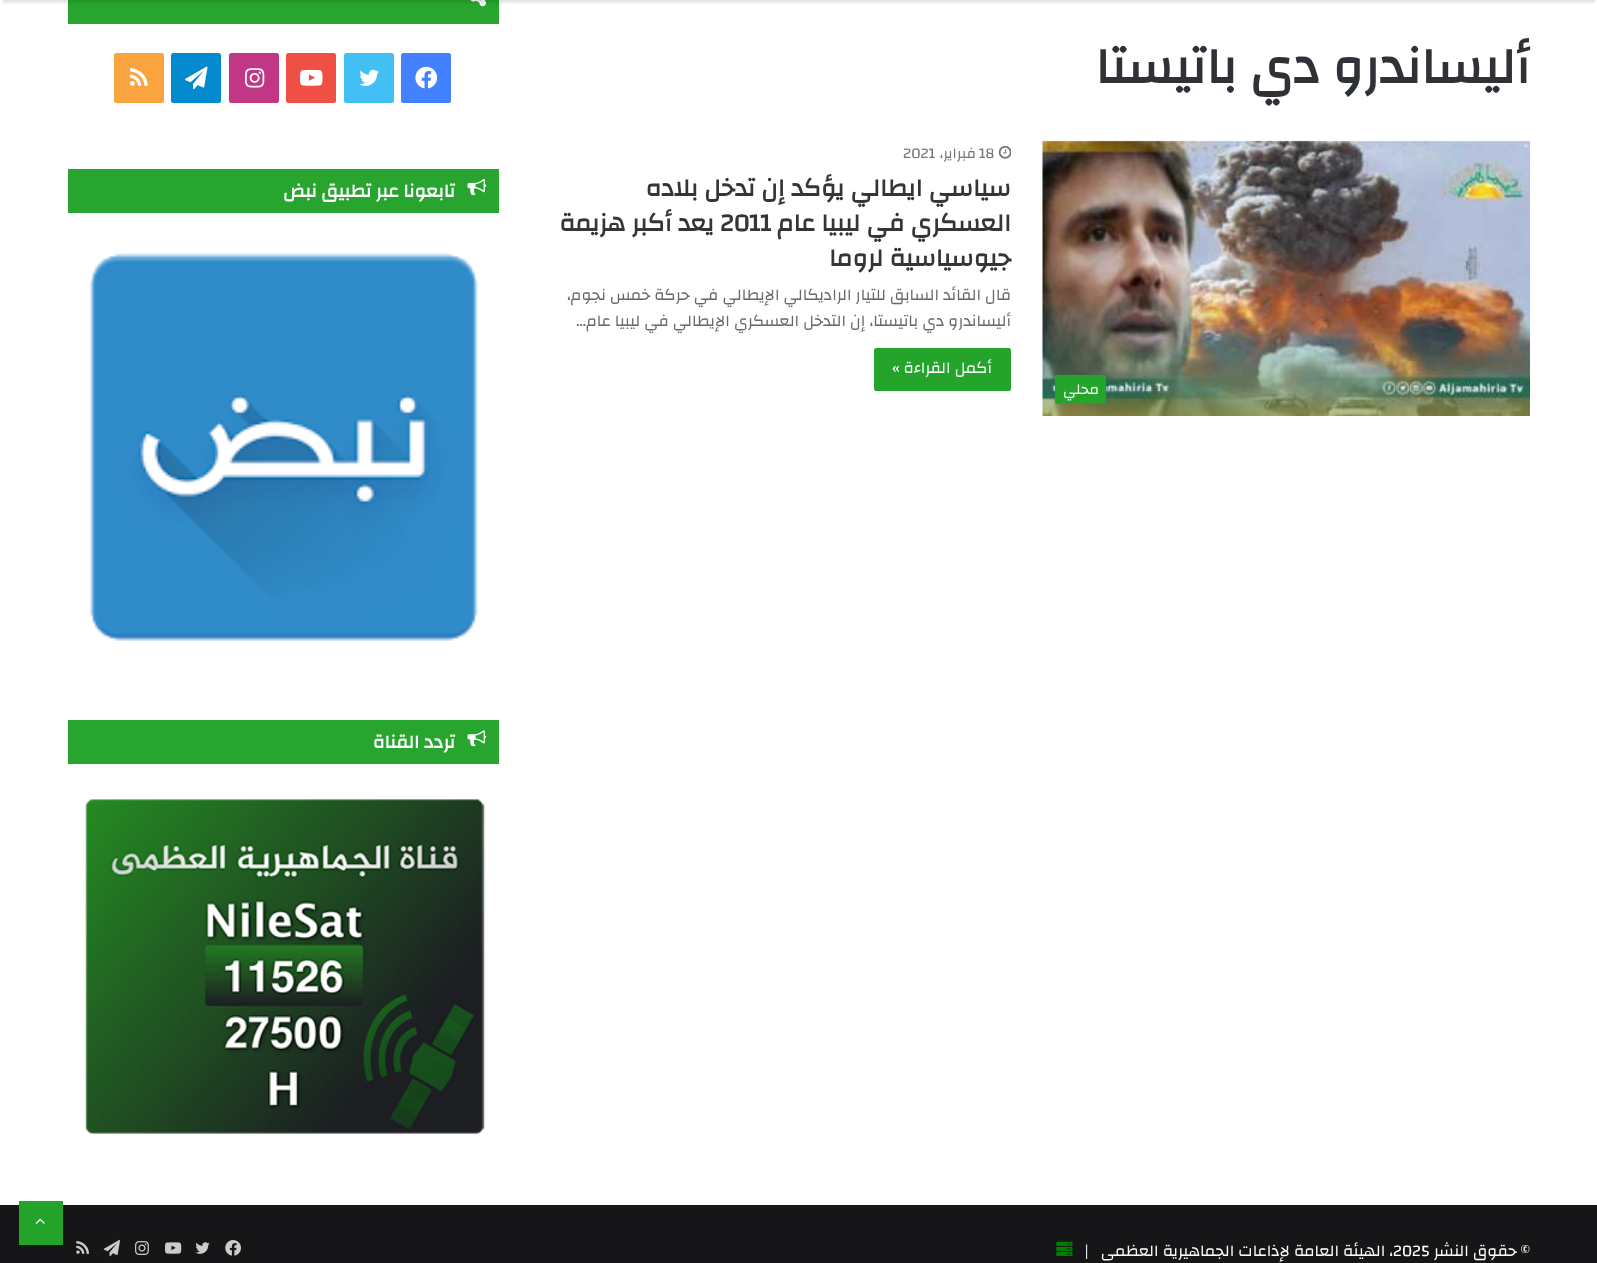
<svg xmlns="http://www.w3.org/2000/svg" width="1597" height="1263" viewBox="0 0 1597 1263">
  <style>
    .t1 { font: bold 51.25px Changa; direction: rtl; fill: #2e3136; }
    .t2 { font: 15px Changa; fill: #777; }
    .t3 { font: 15px Changa; direction: rtl; fill: #777; }
    .t4 { font: bold 25px Changa; direction: rtl; fill: #353535; }
    .t5 { font: bold 25px Changa; fill: #353535; }
    .t6 { font: 16.25px Changa; direction: rtl; fill: #686868; }
    .t7 { font: 16.25px Changa; direction: rtl; fill: #fff; }
    .t8 { font: 15px Changa; direction: rtl; fill: #fff; }
    .t9 { font: bold 18.75px Changa; direction: rtl; fill: #fff; }
    .t10 { font: 16.25px Changa; fill: #fff; }
  </style>
  <rect width="100%" height="100%" fill="#fff"/>
  <rect x="68" y="0" width="431" height="24" fill="#27a52e"/>
  <image x="470" y="0" width="17" height="7" href="images/3.png"/>
  <rect x="3" y="-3" width="1592" height="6" fill="#0000001a" filter="blur(1px)"/>
  <text x="1530" y="83" class="t1">أليساندرو دي باتيستا</text>
  <image x="998" y="145" width="13" height="14" href="images/1.png"/>
  <text x="979" y="158" class="t2">18</text>
  <text x="976" y="158" class="t3">فبراير،</text>
  <text x="903" y="158" class="t2">2021</text>
  <text x="1011" y="196" class="t4">سياسي ايطالي يؤكد إن تدخل بلاده</text>
  <text x="1011" y="231" class="t4">العسكري في ليبيا عام</text>
  <text x="720" y="231" class="t5">2011</text>
  <text x="714" y="231" class="t4">يعد أكبر هزيمة</text>
  <text x="1011" y="266" class="t4">جيوسياسية لروما</text>
  <text x="1011" y="300" class="t6">قال القائد السابق للتيار الراديكالي الإيطالي في حركة خمس نجوم،</text>
  <text x="1011" y="326" class="t6">أليساندرو دي باتيستا، إن التدخل العسكري الإيطالي في ليبيا عام…</text>
  <rect x="874" y="348" width="137" height="43" rx="2.5" fill="#25a42c"/>
  <text x="992" y="373" class="t7">أكمل القراءة »</text>
  <image x="1042" y="140" width="488" height="276" href="images/2.png"/>
  <rect x="1055" y="375" width="51" height="29" rx="2.5" fill="#25a42c"/>
  <text x="1099" y="394" class="t8">محلي</text>
  <rect x="401" y="53" width="50" height="50" rx="2.5" fill="#4281ff"/>
  <image x="415" y="66" width="23" height="23" href="images/4.png"/>
  <rect x="344" y="53" width="50" height="50" rx="2.5" fill="#42c0f5"/>
  <image x="359" y="69" width="20" height="17" href="images/5.png"/>
  <rect x="286" y="53" width="50" height="50" rx="2.5" fill="#ef5043"/>
  <image x="300" y="69" width="23" height="17" href="images/6.png"/>
  <rect x="229" y="53" width="50" height="50" rx="2.5" fill="#c23785"/>
  <image x="245" y="68" width="20" height="20" href="images/7.png"/>
  <rect x="171" y="53" width="50" height="50" rx="2.5" fill="#0389cd"/>
  <image x="185" y="66" width="23" height="24" href="images/8.png"/>
  <rect x="114" y="53" width="50" height="50" rx="2.5" fill="#faa43f"/>
  <image x="130" y="68" width="18" height="18" href="images/9.png"/>
  <rect x="68" y="169" width="431" height="44" fill="#27a52e"/>
  <image x="467" y="179" width="20" height="16" href="images/10.png"/>
  <text x="455" y="197" class="t9">تابعونا عبر تطبيق نبض</text>
  <image x="90" y="253" width="388" height="388" href="images/11.png"/>
  <rect x="68" y="720" width="431" height="44" fill="#27a52e"/>
  <image x="467" y="730" width="20" height="17" href="images/12.png"/>
  <text x="455" y="748" class="t9">تردد القناة</text>
  <image x="85" y="799" width="400" height="335" href="images/13.png"/>
  <rect x="0" y="1205" width="1597" height="58" fill="#161619"/>
  <rect x="19" y="1201" width="44" height="44" fill="#23a32a"/>
  <image x="35" y="1218" width="10" height="6" href="images/14.png"/>
  <text x="1530" y="1256" class="t7">© حقوق النشر</text>
  <text x="1393" y="1256" class="t10">2025</text>
  <text x="1393" y="1256" class="t7" xml:space="preserve">، الهيئة العامة لإذاعات الجماهيرية العظمى   |</text>
  <image x="1056" y="1241" width="17" height="15" href="images/15.png"/>
  <image x="225" y="1240" width="16" height="16" href="images/16.png"/>
  <image x="195" y="1242" width="15" height="12" href="images/17.png"/>
  <image x="165" y="1242" width="17" height="12" href="images/18.png"/>
  <image x="135" y="1241" width="14" height="14" href="images/19.png"/>
  <image x="103" y="1239" width="17" height="18" href="images/20.png"/>
  <image x="76" y="1241" width="13" height="13" href="images/21.png"/>
</svg>
